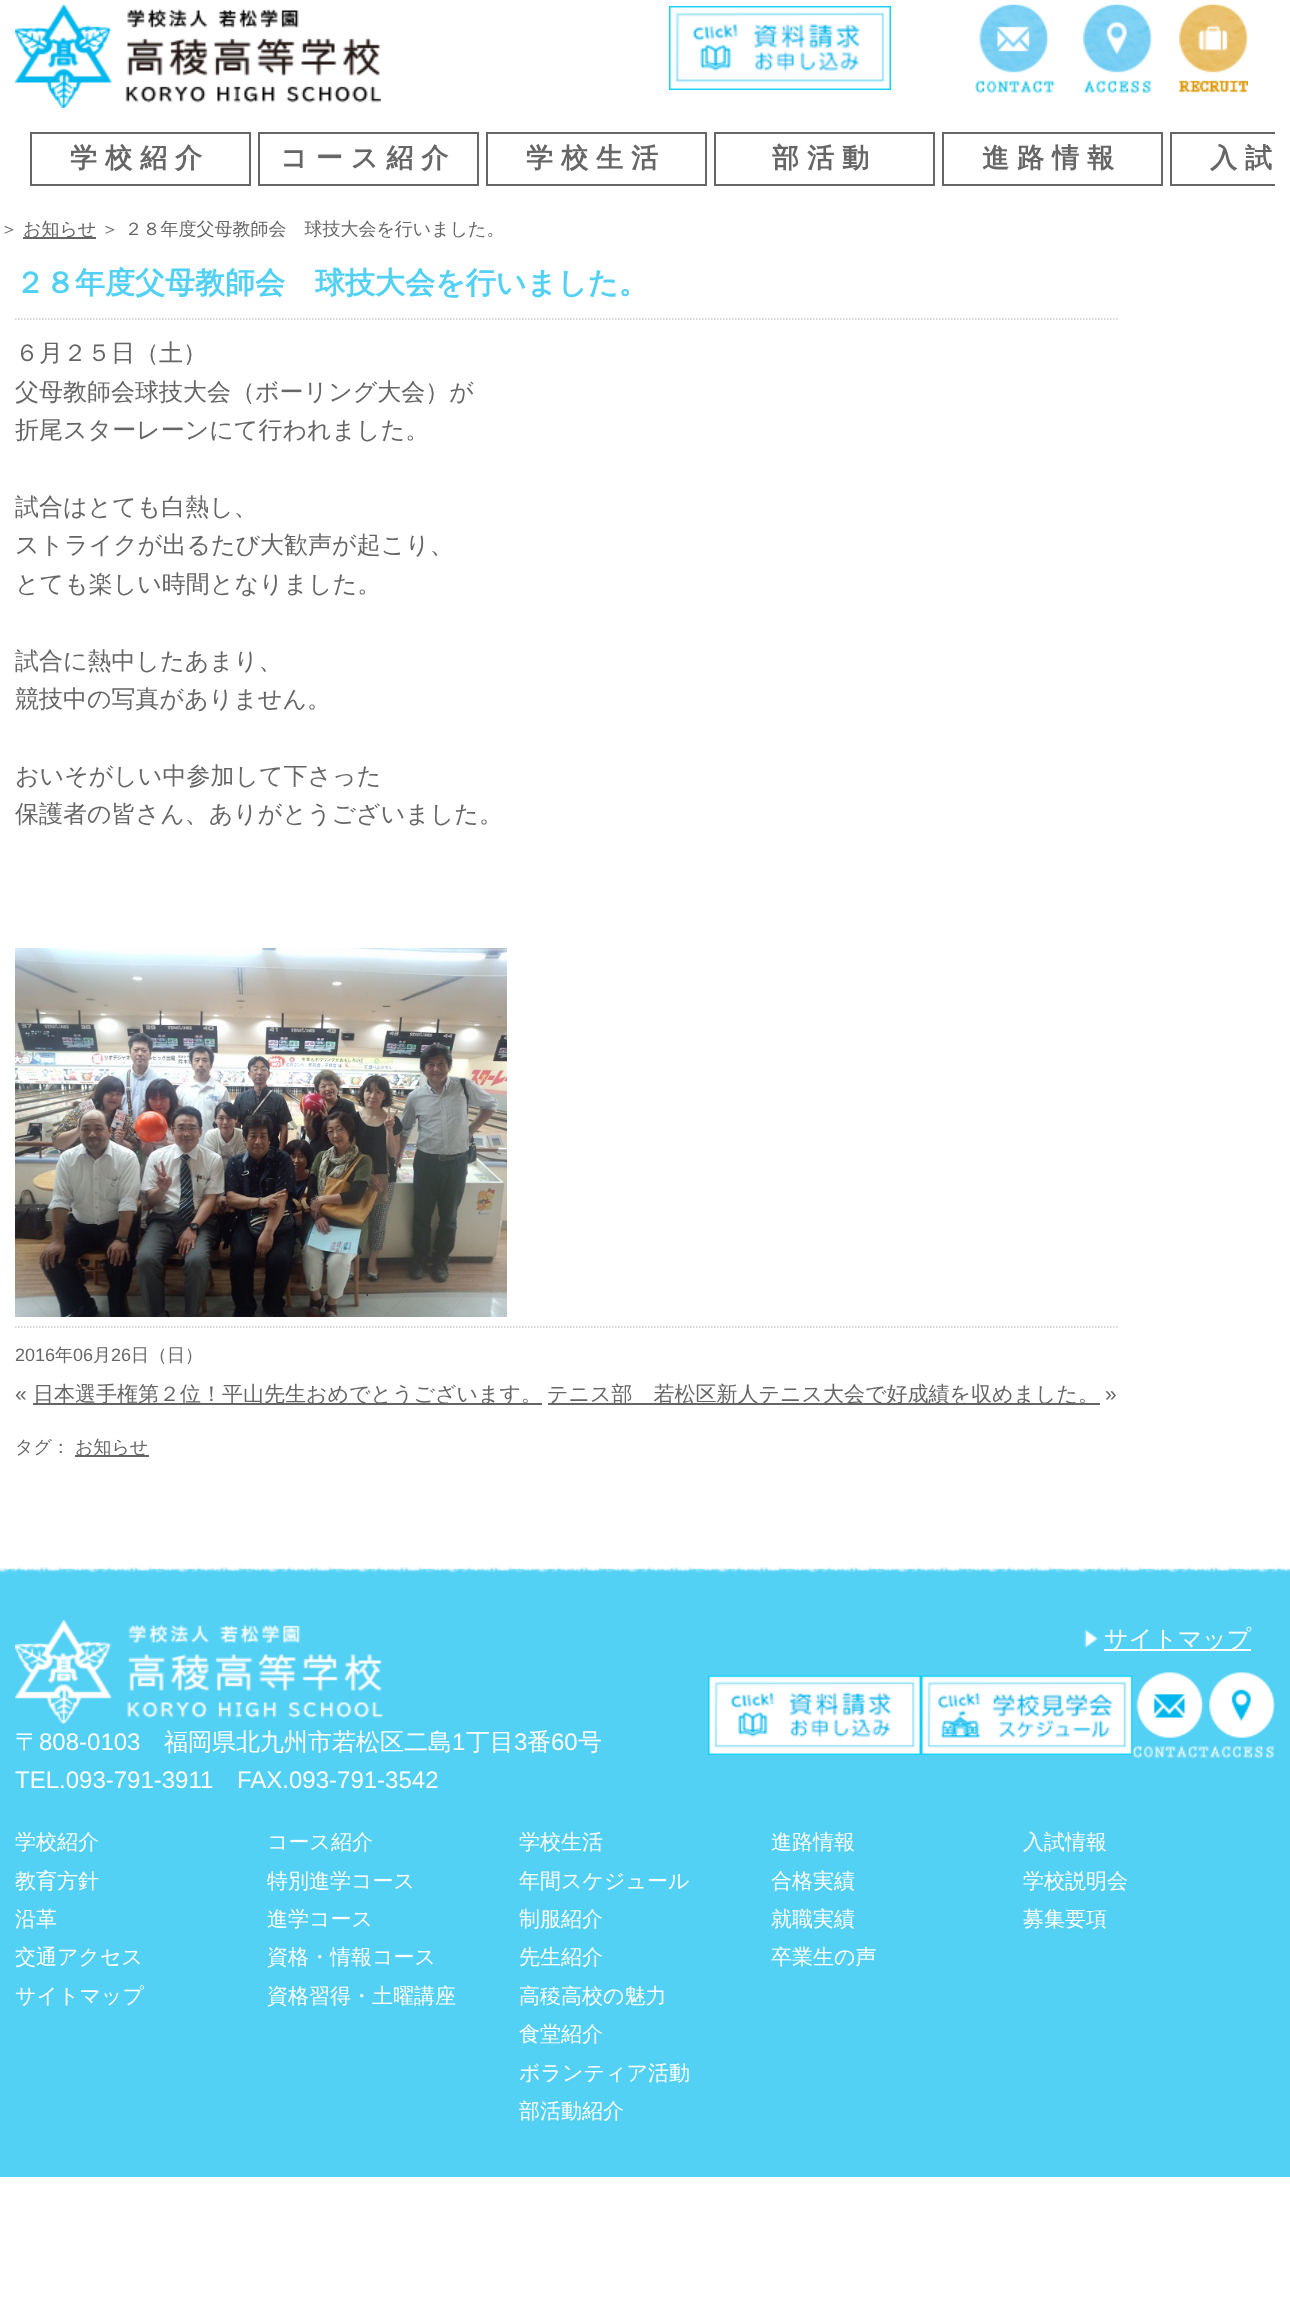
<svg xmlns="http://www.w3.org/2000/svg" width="1290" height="2304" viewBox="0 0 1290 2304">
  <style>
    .t1 { font: bold 27px WenQuanYi Zen Hei; letter-spacing: 8px; fill: #666; }
    .t2 { font: 500 18px WenQuanYi Zen Hei; fill: #666; }
    .t3 { font: bold 30px WenQuanYi Zen Hei; fill: #53d1f5; }
    .t4 { font: 500 24px WenQuanYi Zen Hei; fill: #666; }
    .t5 { font: 18px Liberation Sans; fill: #666; }
    .t6 { font: 21px Liberation Sans; fill: #666; }
    .t7 { font: 500 21px WenQuanYi Zen Hei; fill: #666; }
    .t8 { font: 500 24px WenQuanYi Zen Hei; fill: #fff; }
    .t9 { font: 24px Liberation Sans; fill: #fff; }
    .t10 { font: 500 21px WenQuanYi Zen Hei; fill: #fff; }
  </style>
  <defs>
    <clipPath id="clip1"><rect x="15" y="5" width="1260" height="207"/></clipPath>
  </defs>
  <rect width="100%" height="100%" fill="#fff"/>
  <image x="15" y="4" width="366" height="104" href="images/1.png"/>
  <image x="669" y="6" width="222" height="84" href="images/2.png"/>
  <image x="975" y="4" width="80" height="89" href="images/3.png"/>
  <image x="1083" y="4" width="69" height="89" href="images/4.png"/>
  <image x="1179" y="4" width="69" height="89" href="images/5.png"/>
  <rect x="31" y="133" width="219" height="52" fill="none" stroke="#666" stroke-width="2"/>
  <text x="70" y="167" class="t1">学校紹介</text>
  <rect x="259" y="133" width="219" height="52" fill="none" stroke="#666" stroke-width="2"/>
  <text x="280" y="167" class="t1">コース紹介</text>
  <rect x="487" y="133" width="219" height="52" fill="none" stroke="#666" stroke-width="2"/>
  <text x="526" y="167" class="t1">学校生活</text>
  <rect x="715" y="133" width="219" height="52" fill="none" stroke="#666" stroke-width="2"/>
  <text x="772" y="167" class="t1">部活動</text>
  <rect x="943" y="133" width="219" height="52" fill="none" stroke="#666" stroke-width="2"/>
  <text x="982" y="167" class="t1">進路情報</text>
  <g clip-path="url(#clip1)">
    <rect x="1171" y="133" width="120" height="52" fill="none" stroke="#666" stroke-width="2"/>
  </g>
  <text x="1210" y="167" class="t1">入試</text>
  <text x="0" y="235" class="t2">＞</text>
  <rect x="23" y="237" width="73" height="2" fill="#666"/>
  <text x="23" y="235" class="t2">お知らせ</text>
  <text x="101" y="235" class="t2">＞ ２８年度父母教師会　球技大会を行いました。</text>
  <path d="M15 319H1117.5" fill="none" stroke="#ccc" stroke-width="1.5" stroke-dasharray="1.5 1.5"/>
  <text x="15" y="293" class="t3">２８年度父母教師会　球技大会を行いました。</text>
  <text x="15" y="361" class="t4">６月２５日（土）</text>
  <text x="15" y="400" class="t4">父母教師会球技大会（ボーリング大会）が</text>
  <text x="15" y="438" class="t4">折尾スターレーンにて行われました。</text>
  <text x="15" y="515" class="t4">試合はとても白熱し、</text>
  <text x="15" y="553" class="t4">ストライクが出るたび大歓声が起こり、</text>
  <text x="15" y="592" class="t4">とても楽しい時間となりました。</text>
  <text x="15" y="669" class="t4">試合に熱中したあまり、</text>
  <text x="15" y="707" class="t4">競技中の写真がありません。</text>
  <text x="15" y="784" class="t4">おいそがしい中参加して下さった</text>
  <text x="15" y="822" class="t4">保護者の皆さん、ありがとうございました。</text>
  <image x="15" y="948" width="492" height="369" href="images/6.png"/>
  <path d="M15 1327H1117.5" fill="none" stroke="#ccc" stroke-width="1.5" stroke-dasharray="1.5 1.5"/>
  <text x="15" y="1361" class="t5">2016</text>
  <text x="55" y="1361" class="t2">年</text>
  <text x="73" y="1361" class="t5">06</text>
  <text x="93" y="1361" class="t2">月</text>
  <text x="111" y="1361" class="t5">26</text>
  <text x="131" y="1361" class="t2">日（日）</text>
  <text x="15" y="1401" class="t6">«</text>
  <rect x="33" y="1403" width="509" height="2" fill="#666"/>
  <text x="33" y="1401" class="t7">日本選手権第２位！平山先生おめでとうございます。</text>
  <rect x="548" y="1403" width="552" height="2" fill="#666"/>
  <text x="547" y="1401" class="t7">テニス部　若松区新人テニス大会で好成績を収めました。</text>
  <text x="1105" y="1401" class="t6">»</text>
  <text x="15" y="1453" class="t2">タグ：</text>
  <rect x="75" y="1455" width="74" height="2" fill="#666"/>
  <text x="75" y="1453" class="t2">お知らせ</text>
  <image x="0" y="1567" width="1290" height="8" href="images/7.png"/>
  <rect x="0" y="1575" width="1290" height="602" fill="#53d1f5"/>
  <image x="1084" y="1629" width="14" height="20" href="images/8.png"/>
  <rect x="1104" y="1649" width="147" height="2" fill="#fff"/>
  <text x="1104" y="1647" class="t8">サイトマップ</text>
  <image x="708" y="1675" width="213" height="80" href="images/9.png"/>
  <image x="921" y="1675" width="212" height="80" href="images/10.png"/>
  <image x="1132" y="1672" width="77" height="86" href="images/11.png"/>
  <image x="1209" y="1672" width="66" height="86" href="images/12.png"/>
  <image x="15" y="1620" width="368" height="104" href="images/13.png"/>
  <text x="15" y="1750" class="t8">〒</text>
  <text x="39" y="1750" class="t9">808-0103</text>
  <text x="164" y="1750" class="t8">福岡県北九州市若松区二島</text>
  <text x="452" y="1750" class="t9">1</text>
  <text x="466" y="1750" class="t8">丁目</text>
  <text x="514" y="1750" class="t9">3</text>
  <text x="527" y="1750" class="t8">番</text>
  <text x="551" y="1750" class="t9">60</text>
  <text x="578" y="1750" class="t8">号</text>
  <text x="15" y="1788" class="t9">TEL.093-791-3911</text>
  <text x="237" y="1788" class="t9">FAX.093-791-3542</text>
  <text x="15" y="1849" class="t10">学校紹介</text>
  <text x="15" y="1888" class="t10">教育方針</text>
  <text x="15" y="1926" class="t10">沿革</text>
  <text x="15" y="1964" class="t10">交通アクセス</text>
  <text x="15" y="2003" class="t10">サイトマップ</text>
  <text x="267" y="1849" class="t10">コース紹介</text>
  <text x="267" y="1888" class="t10">特別進学コース</text>
  <text x="267" y="1926" class="t10">進学コース</text>
  <text x="267" y="1964" class="t10">資格・情報コース</text>
  <text x="267" y="2003" class="t10">資格習得・土曜講座</text>
  <text x="519" y="1849" class="t10">学校生活</text>
  <text x="519" y="1888" class="t10">年間スケジュール</text>
  <text x="519" y="1926" class="t10">制服紹介</text>
  <text x="519" y="1964" class="t10">先生紹介</text>
  <text x="519" y="2003" class="t10">高稜高校の魅力</text>
  <text x="519" y="2041" class="t10">食堂紹介</text>
  <text x="519" y="2080" class="t10">ボランティア活動</text>
  <text x="519" y="2118" class="t10">部活動紹介</text>
  <text x="771" y="1849" class="t10">進路情報</text>
  <text x="771" y="1888" class="t10">合格実績</text>
  <text x="771" y="1926" class="t10">就職実績</text>
  <text x="771" y="1964" class="t10">卒業生の声</text>
  <text x="1023" y="1849" class="t10">入試情報</text>
  <text x="1023" y="1888" class="t10">学校説明会</text>
  <text x="1023" y="1926" class="t10">募集要項</text>
</svg>
